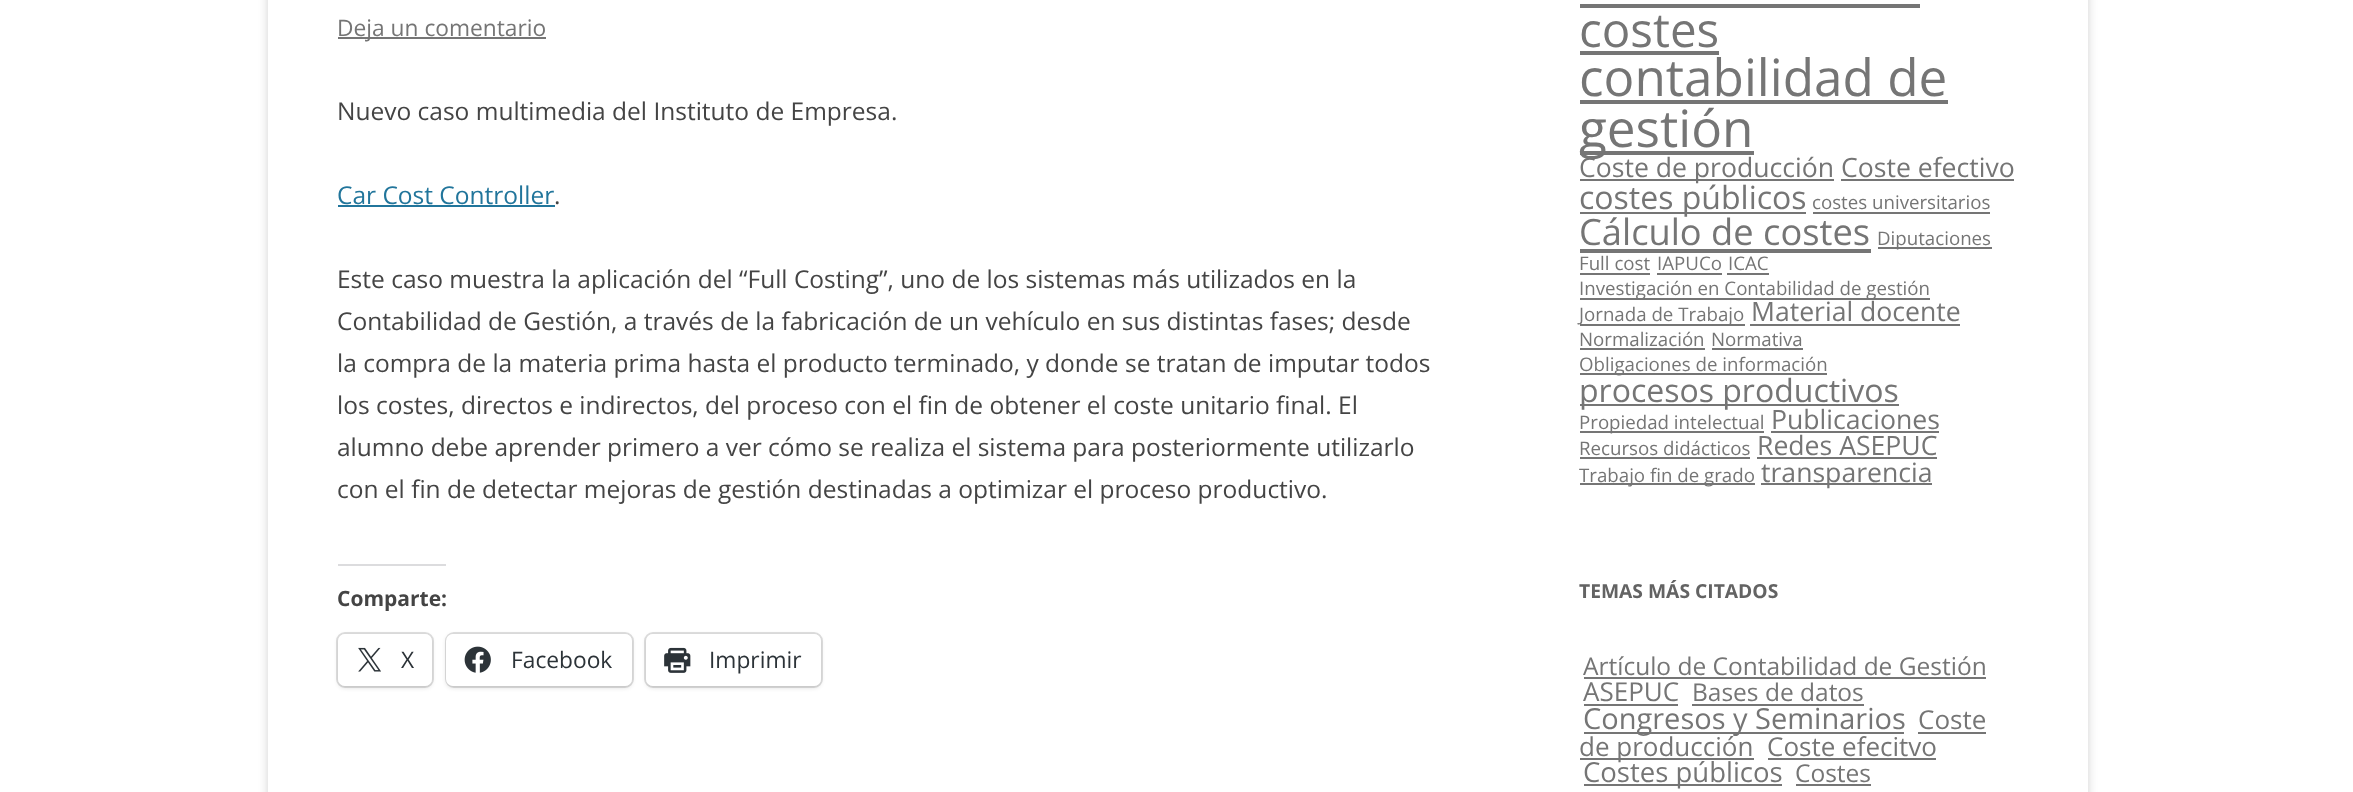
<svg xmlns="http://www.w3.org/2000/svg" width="2353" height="792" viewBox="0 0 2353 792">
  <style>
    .t1 { font: 22.75px Open Sans; fill: #757575; }
    .t2 { font: 24.5px Open Sans; fill: #444; }
    .t3 { font: 24.5px Open Sans; fill: #21759b; }
    .t4 { font: bold 21px Open Sans; fill: #444; }
    .t5 { font: 22.75px Open Sans; fill: #2c3338; }
    .t6 { font: 47.5px Open Sans; fill: #757575; }
    .t7 { font: 51.25px Open Sans; fill: #757575; }
    .t8 { font: 26.6px Open Sans; fill: #757575; }
    .t9 { font: 32px Open Sans; fill: #757575; }
    .t10 { font: 18.7px Open Sans; fill: #757575; }
    .t11 { font: 36.25px Open Sans; fill: #757575; }
    .t12 { font: bold 19.25px Open Sans; fill: #636363; }
    .t13 { font: 24.5px Open Sans; fill: #757575; }
    .t14 { font: 26px Open Sans; fill: #757575; }
    .t15 { font: 29px Open Sans; fill: #757575; }
    .t16 { font: 27.5px Open Sans; fill: #757575; }
  </style>
  <rect width="100%" height="100%" fill="#fff"/>
  <rect x="268" y="-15" width="1820" height="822" fill="#6464644d" filter="blur(5px)"/>
  <rect x="268" y="0" width="1820" height="792" fill="#fff"/>
  <rect x="338" y="37" width="208" height="2" fill="#757575"/>
  <text x="337" y="36" class="t1">Deja un comentario</text>
  <text x="337" y="120" class="t2">Nuevo caso multimedia del Instituto de Empresa.</text>
  <text x="337" y="204" class="t3">Car Cost Controller</text>
  <rect x="338" y="205" width="217" height="2" fill="#21759b"/>
  <text x="554" y="204" class="t2">.</text>
  <text x="337" y="288" class="t2">Este caso muestra la aplicación del “Full Costing”, uno de los sistemas más utilizados en la</text>
  <text x="337" y="330" class="t2">Contabilidad de Gestión, a través de la fabricación de un vehículo en sus distintas fases; desde</text>
  <text x="337" y="372" class="t2">la compra de la materia prima hasta el producto terminado, y donde se tratan de imputar todos</text>
  <text x="337" y="414" class="t2">los costes, directos e indirectos, del proceso con el fin de obtener el coste unitario final. El</text>
  <text x="337" y="456" class="t2">alumno debe aprender primero a ver cómo se realiza el sistema para posteriormente utilizarlo</text>
  <text x="337" y="498" class="t2">con el fin de detectar mejoras de gestión destinadas a optimizar el proceso productivo.</text>
  <rect x="338" y="564" width="108" height="2" fill="#dcdcde"/>
  <text x="337" y="606" class="t4">Comparte:</text>
  <rect x="337" y="633" width="96" height="54" rx="8" fill="none" stroke="#e0e0e0" stroke-width="2"/>
  <rect x="338" y="635" width="94" height="53" rx="7" fill="#0000001f" filter="blur(2px)"/>
  <rect x="338" y="634" width="94" height="52" rx="7" fill="#fff"/>
  <image x="358" y="647" width="23" height="25" href="images/1.png"/>
  <text x="401" y="668" class="t5">X</text>
  <rect x="446" y="633" width="187" height="54" rx="8" fill="none" stroke="#e0e0e0" stroke-width="2"/>
  <rect x="446" y="635" width="186" height="53" rx="7" fill="#0000001f" filter="blur(2px)"/>
  <rect x="446" y="634" width="186" height="52" rx="7" fill="#fff"/>
  <image x="464" y="646" width="27" height="27" href="images/2.png"/>
  <text x="511" y="668" class="t5">Facebook</text>
  <rect x="645" y="633" width="177" height="54" rx="8" fill="none" stroke="#e0e0e0" stroke-width="2"/>
  <rect x="646" y="635" width="175" height="53" rx="7" fill="#0000001f" filter="blur(2px)"/>
  <rect x="646" y="634" width="175" height="52" rx="7" fill="#fff"/>
  <image x="664" y="647" width="27" height="26" href="images/3.png"/>
  <text x="709" y="668" class="t5">Imprimir</text>
  <text x="1579" y="47" class="t6">costes</text>
  <rect x="1580" y="4" width="340" height="4" fill="#757575"/>
  <rect x="1580" y="51" width="139" height="4" fill="#757575"/>
  <text x="1579" y="96" class="t7">contabilidad de</text>
  <rect x="1580" y="100" width="368" height="4" fill="#757575"/>
  <rect x="1580" y="151" width="174" height="4" fill="#757575"/>
  <text x="1579" y="147" class="t7">gestión</text>
  <rect x="1580" y="179" width="254" height="2" fill="#757575"/>
  <text x="1579" y="177" class="t8">Coste de producción</text>
  <text x="1841" y="177" class="t8">Coste efectivo</text>
  <rect x="1841" y="179" width="173" height="2" fill="#757575"/>
  <rect x="1580" y="212" width="226" height="2" fill="#757575"/>
  <text x="1579" y="209" class="t9">costes públicos</text>
  <text x="1812" y="209" class="t10">costes universitarios</text>
  <rect x="1813" y="212" width="177" height="2" fill="#757575"/>
  <text x="1579" y="245" class="t11">Cálculo de costes</text>
  <rect x="1580" y="249" width="291" height="4" fill="#757575"/>
  <rect x="1878" y="247" width="114" height="2" fill="#757575"/>
  <text x="1877" y="245" class="t10">Diputaciones</text>
  <text x="1579" y="270" class="t10">Full cost</text>
  <rect x="1580" y="273" width="70" height="2" fill="#757575"/>
  <text x="1657" y="270" class="t10">IAPUCo</text>
  <rect x="1657" y="273" width="65" height="2" fill="#757575"/>
  <text x="1728" y="270" class="t10">ICAC</text>
  <rect x="1727" y="273" width="42" height="2" fill="#757575"/>
  <rect x="1580" y="298" width="350" height="2" fill="#757575"/>
  <text x="1579" y="295" class="t10">Investigación en Contabilidad de gestión</text>
  <rect x="1580" y="324" width="165" height="2" fill="#757575"/>
  <text x="1579" y="321" class="t10">Jornada de Trabajo</text>
  <text x="1751" y="321" class="t8">Material docente</text>
  <rect x="1750" y="324" width="210" height="2" fill="#757575"/>
  <text x="1579" y="346" class="t10">Normalización</text>
  <rect x="1580" y="348" width="125" height="2" fill="#757575"/>
  <text x="1711" y="346" class="t10">Normativa</text>
  <rect x="1712" y="348" width="91" height="2" fill="#757575"/>
  <rect x="1580" y="373" width="247" height="2" fill="#757575"/>
  <text x="1579" y="371" class="t10">Obligaciones de información</text>
  <rect x="1580" y="404" width="319" height="2" fill="#757575"/>
  <text x="1579" y="402" class="t9">procesos productivos</text>
  <rect x="1580" y="431" width="184" height="2" fill="#757575"/>
  <text x="1579" y="429" class="t10">Propiedad intelectual</text>
  <text x="1771" y="429" class="t8">Publicaciones</text>
  <rect x="1771" y="431" width="168" height="2" fill="#757575"/>
  <text x="1579" y="455" class="t10">Recursos didácticos</text>
  <rect x="1580" y="457" width="170" height="2" fill="#757575"/>
  <text x="1757" y="455" class="t8">Redes ASEPUC</text>
  <rect x="1757" y="457" width="180" height="2" fill="#757575"/>
  <rect x="1580" y="483" width="175" height="2" fill="#757575"/>
  <text x="1579" y="482" class="t10">Trabajo fin de grado</text>
  <rect x="1761" y="483" width="171" height="2" fill="#757575"/>
  <text x="1761" y="482" class="t8">transparencia</text>
  <text x="1579" y="598" class="t12">TEMAS MÁS CITADOS</text>
  <text x="1583" y="675" class="t13">Artículo de Contabilidad de Gestión</text>
  <rect x="1584" y="677" width="402" height="2" fill="#757575"/>
  <text x="1583" y="701" class="t14">ASEPUC</text>
  <rect x="1584" y="704" width="94" height="2" fill="#757575"/>
  <text x="1692" y="701" class="t13">Bases de datos</text>
  <rect x="1692" y="704" width="172" height="2" fill="#757575"/>
  <rect x="1584" y="732" width="320" height="2" fill="#757575"/>
  <text x="1583" y="729" class="t15">Congresos y Seminarios</text>
  <text x="1918" y="729" class="t14">Coste</text>
  <rect x="1918" y="732" width="68" height="2" fill="#757575"/>
  <rect x="1580" y="758" width="174" height="2" fill="#757575"/>
  <text x="1579" y="756" class="t14">de producción</text>
  <text x="1767" y="756" class="t14">Coste efecitvo</text>
  <rect x="1768" y="758" width="168" height="2" fill="#757575"/>
  <rect x="1584" y="784" width="198" height="2" fill="#757575"/>
  <text x="1583" y="782" class="t16">Costes públicos</text>
  <text x="1795" y="782" class="t13">Costes</text>
  <rect x="1796" y="784" width="75" height="2" fill="#757575"/>
</svg>
